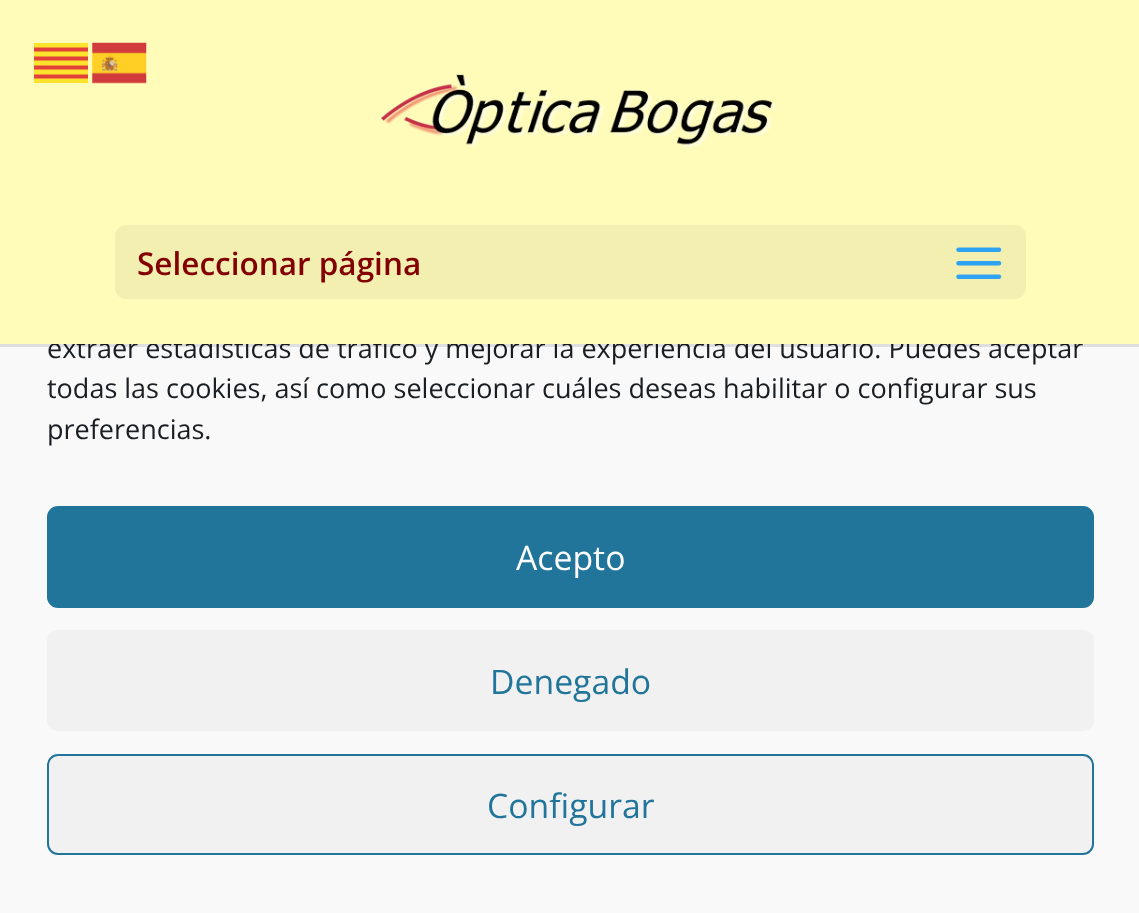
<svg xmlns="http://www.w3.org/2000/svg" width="1139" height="913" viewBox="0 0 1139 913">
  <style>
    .t1 { font: 27px Open Sans; fill: #191e23; }
    .t2 { font: 600 31.5px Open Sans; fill: #820000; }
    .t3 { font: 33.75px Open Sans; fill: #fff; }
    .t4 { font: 33.75px Open Sans; fill: #21759b; }
  </style>
  <rect width="100%" height="100%" fill="#f9f9f9"/>
  <text x="47" y="358" class="t1">extraer estadísticas de tráfico y mejorar la experiencia del usuario. Puedes aceptar</text>
  <rect x="0" y="0" width="1139" height="344" fill="#fffcba"/>
  <rect x="34" y="43" width="54" height="40" fill="#fde32c"/>
  <image x="92" y="42" width="55" height="42" href="images/1.png"/>
  <path d="M34 49.5H88M88 58.5H34M34 67.5H88M88 76.5H34" fill="none" stroke="#e1413a" stroke-width="4.2"/>
  <path d="M0 344V347H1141V2V344Z" fill="#0000001a"/>
  <image x="381" y="74" width="396" height="74" href="images/2.png"/>
  <rect x="115" y="225" width="911" height="74" rx="11" fill="#f2efb1"/>
  <text x="137" y="275" class="t2">Seleccionar página</text>
  <image x="956" y="247" width="46" height="32" href="images/3.png"/>
  <text x="47" y="398" class="t1">todas las cookies, así como seleccionar cuáles deseas habilitar o configurar sus</text>
  <text x="47" y="439" class="t1">preferencias.</text>
  <rect x="48" y="507" width="1045" height="100" rx="10" fill="#21759b" stroke="#21759b" stroke-width="2"/>
  <text x="516" y="570" class="t3">Acepto</text>
  <rect x="47" y="630" width="1047" height="101" rx="11" fill="#f1f1f1"/>
  <text x="490" y="694" class="t4">Denegado</text>
  <rect x="48" y="755" width="1045" height="99" rx="10" fill="#f1f1f1" stroke="#21759b" stroke-width="2"/>
  <text x="487" y="818" class="t4">Configurar</text>
</svg>
